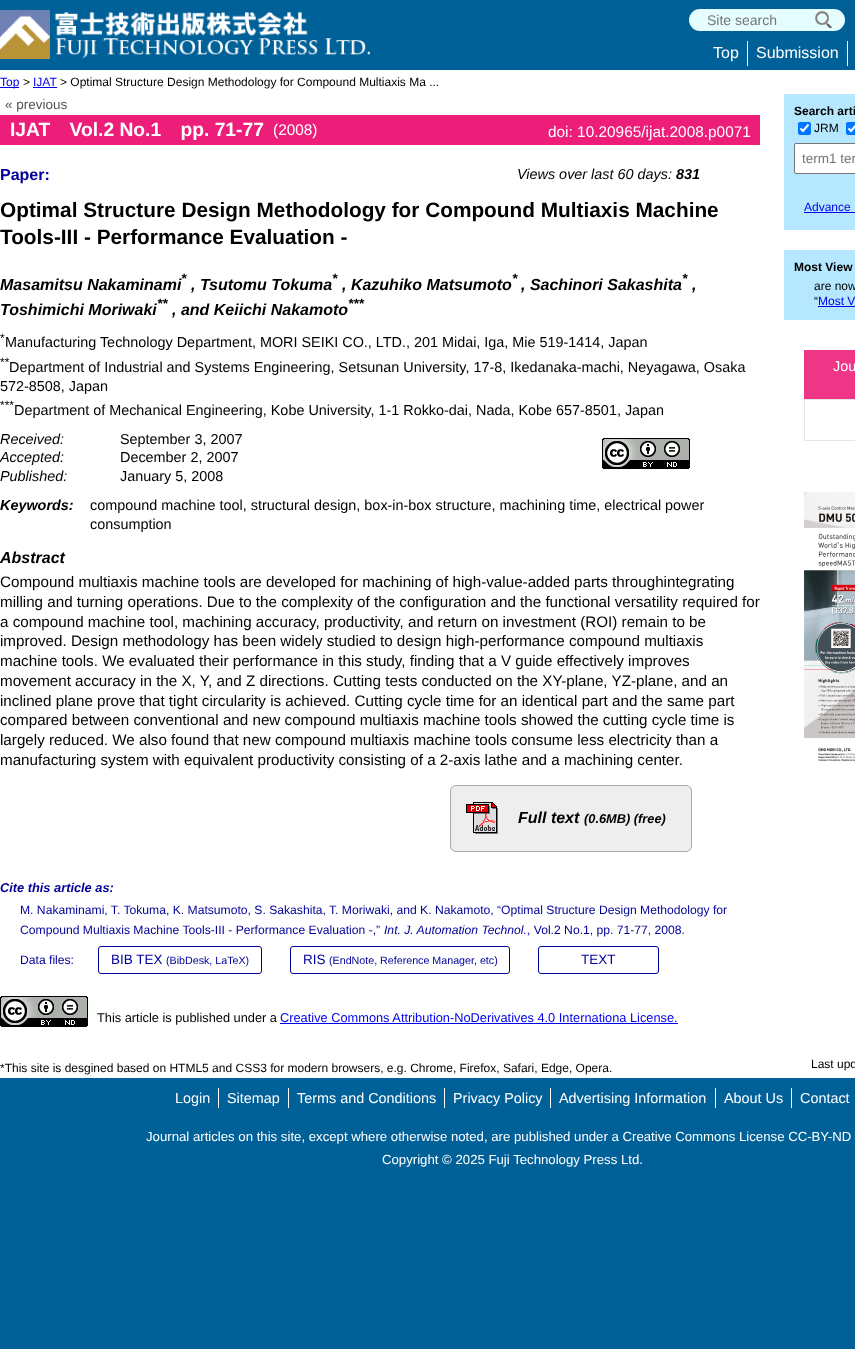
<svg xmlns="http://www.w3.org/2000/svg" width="855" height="1349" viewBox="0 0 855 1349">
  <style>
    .t1 { font: 14px Liberation Sans; fill: #757575; }
    .t2 { font: 16px Liberation Sans; fill: #fff; }
    .t3 { font: 12px Liberation Sans; fill: #00e; }
    .t4 { font: 12px Liberation Sans; fill: #000; }
    .t5 { font: 13.5px Liberation Sans; fill: #555; }
    .t6 { font: bold 19.25px Liberation Sans; fill: #fff; }
    .t7 { font: 15.4px Liberation Sans; fill: #fff; }
    .t8 { font: bold 16px Liberation Sans; fill: #009; }
    .t9 { font: italic 14.4px Liberation Sans; fill: #000; }
    .t10 { font: italic bold 14.4px Liberation Sans; fill: #000; }
    .t11 { font: bold 20.8px Liberation Sans; fill: #000; }
    .t12 { font: italic bold 13.5px Liberation Sans; fill: #000; }
    .t13 { font: italic bold 16px Liberation Sans; fill: #000; }
    .t14 { font: 14.4px Liberation Sans; fill: #000; }
    .t15 { font: 15.2px Liberation Sans; fill: #000; }
    .t16 { font: italic bold 12.8px Liberation Sans; fill: #000; }
    .t17 { font: italic bold 12.8px Liberation Sans; fill: #009; }
    .t18 { font: 12.15px Liberation Sans; fill: #009; }
    .t19 { font: italic 12.15px Liberation Sans; fill: #009; }
    .t20 { font: 13.5px Liberation Sans; fill: #009; }
    .t21 { font: 10.7px Liberation Sans; fill: #009; }
    .t22 { font: 12.8px Liberation Sans; fill: #000; }
    .t23 { font: 12.8px Liberation Sans; fill: #00e; }
    .t24 { font: bold 12px Liberation Sans; fill: #000; }
    .t25 { font: 13.5px Liberation Sans; fill: #757575; }
    .t26 { font: 14.4px Liberation Sans; fill: #fff; }
    .t27 { font: 13.2px Liberation Sans; fill: #fff; }
  </style>
  <rect width="100%" height="100%" fill="#006098"/>
  <image x="0" y="10" width="370" height="49" href="images/1.png"/>
  <rect x="689" y="9" width="156" height="22" rx="11" fill="#e5fdff"/>
  <text x="707" y="25" class="t1">Site search</text>
  <image x="815" y="11" width="17" height="17" href="images/2.png"/>
  <rect x="747" y="41" width="1" height="25" fill="#fff"/>
  <text x="713" y="58" class="t2">Top</text>
  <rect x="847" y="41" width="1" height="25" fill="#fff"/>
  <text x="756" y="58" class="t2">Submission</text>
  <rect x="0" y="70" width="855" height="1008" fill="#fff"/>
  <rect x="0" y="87" width="19" height="1" fill="#00e"/>
  <text x="0" y="86" class="t3">Top</text>
  <text x="23" y="86" class="t4">&gt;</text>
  <text x="33" y="86" class="t3">IJAT</text>
  <rect x="33" y="87" width="24" height="1" fill="#00e"/>
  <text x="60" y="86" class="t4">&gt; Optimal Structure Design Methodology for Compound Multiaxis Ma ...</text>
  <text x="5" y="109" class="t5">« previous</text>
  <rect x="0" y="115" width="760" height="30" fill="#ed1e79"/>
  <text x="10" y="136" class="t6">IJAT Vol.2 No.1 pp. 71-77</text>
  <text x="273" y="135" class="t7">(2008)</text>
  <text x="548" y="137" class="t7">doi: 10.20965/ijat.2008.p0071</text>
  <text x="0" y="180" class="t8">Paper:</text>
  <text x="517" y="179" class="t9">Views over last 60 days:</text>
  <text x="676" y="179" class="t10">831</text>
  <text x="0" y="217" class="t11">Optimal Structure Design Methodology for Compound Multiaxis Machine</text>
  <text x="0" y="244" class="t11">Tools-III - Performance Evaluation -</text>
  <text x="181" y="283" class="t12">*</text>
  <text x="332" y="283" class="t12">*</text>
  <text x="512" y="283" class="t12">*</text>
  <text x="682" y="283" class="t12">*</text>
  <text x="0" y="290" class="t13">Masamitsu Nakaminami</text>
  <text x="191" y="290" class="t13">, Tsutomu Tokuma</text>
  <text x="342" y="290" class="t13">, Kazuhiko Matsumoto</text>
  <text x="521" y="290" class="t13">, Sachinori Sakashita</text>
  <text x="692" y="290" class="t13">,</text>
  <text x="157" y="308" class="t12">**</text>
  <text x="348" y="308" class="t12">***</text>
  <text x="0" y="315" class="t13">Toshimichi Moriwaki</text>
  <text x="172" y="315" class="t13">, and Keiichi Nakamoto</text>
  <text x="0" y="342" class="t4">*</text>
  <text x="5" y="347" class="t14">Manufacturing Technology Department, MORI SEIKI CO., LTD., 201 Midai, Iga, Mie 519-1414, Japan</text>
  <text x="0" y="366" class="t4">**</text>
  <text x="9" y="372" class="t14">Department of Industrial and Systems Engineering, Setsunan University, 17-8, Ikedanaka-machi, Neyagawa, Osaka</text>
  <text x="0" y="391" class="t14">572-8508, Japan</text>
  <text x="0" y="409" class="t4">***</text>
  <text x="14" y="415" class="t14">Department of Mechanical Engineering, Kobe University, 1-1 Rokko-dai, Nada, Kobe 657-8501, Japan</text>
  <text x="0" y="444" class="t9">Received:</text>
  <text x="120" y="444" class="t14">September 3, 2007</text>
  <text x="0" y="462" class="t9">Accepted:</text>
  <text x="120" y="462" class="t14">December 2, 2007</text>
  <text x="0" y="481" class="t9">Published:</text>
  <text x="120" y="481" class="t14">January 5, 2008</text>
  <image x="602" y="438" width="88" height="31" href="images/3.png"/>
  <text x="0" y="510" class="t10">Keywords:</text>
  <text x="90" y="510" class="t14">compound machine tool, structural design, box-in-box structure, machining time, electrical power</text>
  <text x="90" y="529" class="t14">consumption</text>
  <text x="0" y="563" class="t13">Abstract</text>
  <text x="0" y="587" class="t15">Compound multiaxis machine tools are developed for machining of high-value-added parts throughintegrating</text>
  <text x="0" y="607" class="t15">milling and turning operations. Due to the complexity of the configuration and the functional versatility required for</text>
  <text x="0" y="627" class="t15">a compound machine tool, machining accuracy, productivity, and return on investment (ROI) remain to be</text>
  <text x="0" y="646" class="t15">improved. Design methodology has been widely studied to design high-performance compound multiaxis</text>
  <text x="0" y="666" class="t15">machine tools. We evaluated their performance in this study, finding that a V guide effectively improves</text>
  <text x="0" y="686" class="t15">movement accuracy in the X, Y, and Z directions. Cutting tests conducted on the XY-plane, YZ-plane, and an</text>
  <text x="0" y="706" class="t15">inclined plane prove that tight circularity is achieved. Cutting cycle time for an identical part and the same part</text>
  <text x="0" y="725" class="t15">compared between conventional and new compound multiaxis machine tools showed the cutting cycle time is</text>
  <text x="0" y="745" class="t15">largely reduced. We also found that new compound multiaxis machine tools consume less electricity than a</text>
  <text x="0" y="765" class="t15">manufacturing system with equivalent productivity consisting of a 2-axis lathe and a machining center.</text>
  <rect x="450.5" y="785.5" width="241" height="66" rx="5.5" fill="#eee" stroke="#aaa"/>
  <image x="466" y="802" width="32" height="32" href="images/4.png"/>
  <text x="518" y="823" class="t13">Full text</text>
  <text x="584" y="823" class="t16">(0.6MB) (free)</text>
  <text x="0" y="892" class="t17">Cite this article as:</text>
  <text x="20" y="914" class="t18">M. Nakaminami, T. Tokuma, K. Matsumoto, S. Sakashita, T. Moriwaki, and K. Nakamoto, “Optimal Structure Design Methodology for</text>
  <text x="20" y="934" class="t18">Compound Multiaxis Machine Tools-III - Performance Evaluation -,”</text>
  <text x="384" y="934" class="t19">Int. J. Automation Technol.</text>
  <text x="527" y="934" class="t18">, Vol.2 No.1, pp. 71-77, 2008.</text>
  <text x="20" y="964" class="t18">Data files:</text>
  <rect x="98.5" y="946.5" width="163" height="27" rx="2.5" fill="none" stroke="#009"/>
  <text x="111" y="964" class="t20">BIB TEX</text>
  <text x="166" y="964" class="t21">(BibDesk, LaTeX)</text>
  <rect x="290.5" y="946.5" width="219" height="27" rx="2.5" fill="none" stroke="#009"/>
  <text x="303" y="964" class="t20">RIS</text>
  <text x="329" y="964" class="t21">(EndNote, Reference Manager, etc)</text>
  <rect x="538.5" y="946.5" width="120" height="27" rx="2.5" fill="none" stroke="#009"/>
  <text x="581" y="964" class="t20">TEXT</text>
  <image x="0" y="996" width="88" height="31" href="images/3.png"/>
  <text x="97" y="1022" class="t22">This article is published under a</text>
  <text x="280" y="1022" class="t23">Creative Commons Attribution-NoDerivatives 4.0 Internationa License.</text>
  <rect x="280" y="1023" width="398" height="1" fill="#00e"/>
  <rect x="784" y="94" width="71" height="136" fill="#b5e8fe"/>
  <text x="794" y="115" class="t24">Search arti</text>
  <rect x="798" y="122" width="13" height="13" rx="2" fill="#0075ff"/>
  <path d="M800.5 128.5L803 131L808.5 124.5" fill="none" stroke="#fff" stroke-width="2.1"/>
  <text x="814" y="132" class="t4">JRM</text>
  <rect x="846" y="122" width="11" height="13" rx="2" fill="#0075ff"/>
  <path d="M848.5 128.5L851 131L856.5 124.5" fill="none" stroke="#fff" stroke-width="2.1"/>
  <rect x="794.5" y="143.5" width="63" height="30" rx="1.5" fill="#fff" stroke="#767676"/>
  <text x="802" y="163" class="t25">term1 ter</text>
  <text x="804" y="211" class="t3">Advance</text>
  <rect x="804" y="212" width="51" height="1" fill="#00e"/>
  <rect x="784" y="250" width="71" height="70" fill="#b5e8fe"/>
  <text x="794" y="271" class="t24">Most View</text>
  <text x="814" y="290" class="t4">are now</text>
  <text x="814" y="305" class="t4">“</text>
  <text x="818" y="305" class="t3">Most V</text>
  <rect x="818" y="306" width="37" height="1" fill="#00e"/>
  <rect x="804" y="350" width="51" height="49" fill="#ef3586"/>
  <text x="833" y="371" class="t26">Jou</text>
  <rect x="804.5" y="399.5" width="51" height="41" fill="none" stroke="#e5e5e5"/>
  <image x="804" y="492" width="51" height="270" href="images/5.png"/>
  <text x="0" y="1072" class="t4">*This site is desgined based on HTML5 and CSS3 for modern browsers, e.g. Chrome, Firefox, Safari, Edge, Opera.</text>
  <text x="811" y="1068" class="t4">Last upd</text>
  <rect x="218" y="1088" width="1" height="20" fill="#fff"/>
  <text x="175" y="1103" class="t26">Login</text>
  <rect x="288" y="1088" width="1" height="20" fill="#fff"/>
  <text x="227" y="1103" class="t26">Sitemap</text>
  <rect x="444" y="1088" width="1" height="20" fill="#fff"/>
  <text x="297" y="1103" class="t26">Terms and Conditions</text>
  <rect x="550" y="1088" width="1" height="20" fill="#fff"/>
  <text x="453" y="1103" class="t26">Privacy Policy</text>
  <rect x="715" y="1088" width="1" height="20" fill="#fff"/>
  <text x="559" y="1103" class="t26">Advertising Information</text>
  <rect x="791" y="1088" width="1" height="20" fill="#fff"/>
  <text x="724" y="1103" class="t26">About Us</text>
  <text x="800" y="1103" class="t26">Contact</text>
  <text x="146" y="1141" class="t27">Journal articles on this site, except where otherwise noted, are published under a Creative Commons License CC-BY-ND</text>
  <text x="382" y="1164" class="t27">Copyright © 2025 Fuji Technology Press Ltd.</text>
</svg>
